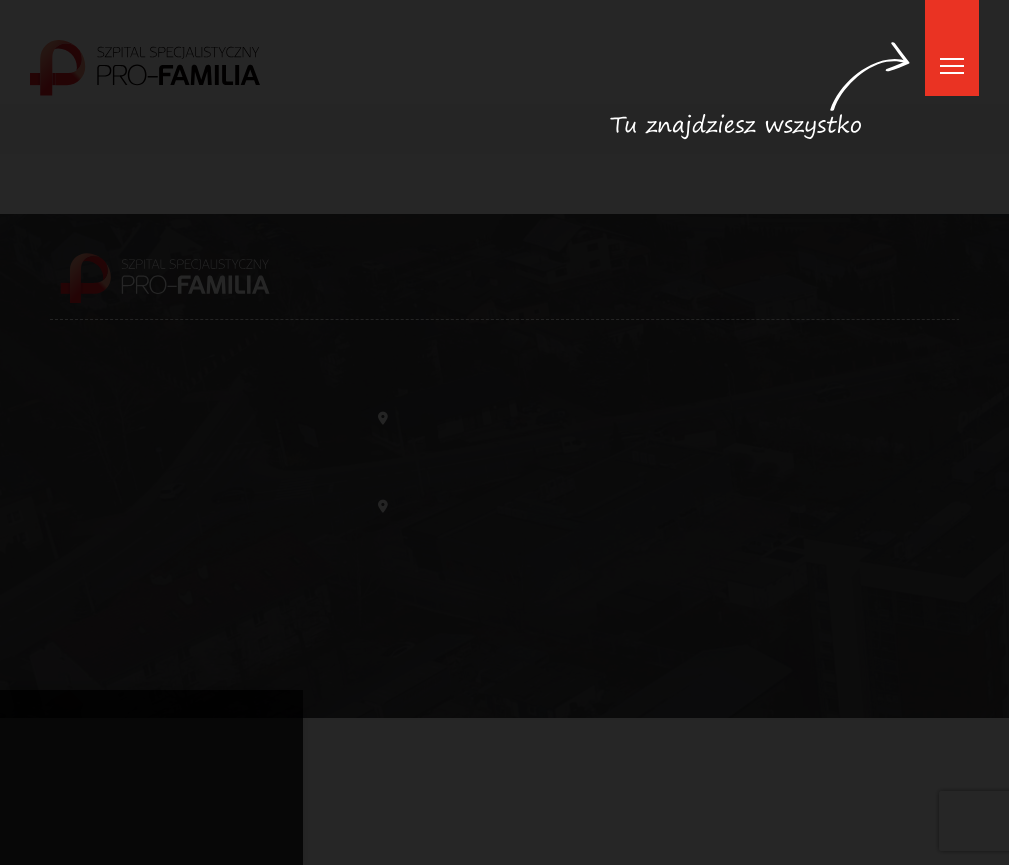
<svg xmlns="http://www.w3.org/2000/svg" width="1009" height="865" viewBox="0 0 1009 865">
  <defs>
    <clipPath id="clip1"><path d="M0 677H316V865H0ZM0 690H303V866H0Z" clip-rule="evenodd"/></clipPath>
    <clipPath id="clip2"><path d="M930 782H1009V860H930ZM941 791H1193C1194 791 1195 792 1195 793V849C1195 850 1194 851 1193 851H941C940 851 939 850 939 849V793C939 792 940 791 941 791Z" clip-rule="evenodd"/></clipPath>
  </defs>
  <rect width="100%" height="100%" fill="#fff"/>
  <image x="30" y="40" width="230" height="56" href="images/1.png"/>
  <rect x="925" y="0" width="54" height="96" fill="#ea3323"/>
  <rect x="940" y="65" width="24" height="2" fill="#fff"/>
  <rect x="940" y="58" width="24" height="2" fill="#fff"/>
  <rect x="940" y="72" width="24" height="2" fill="#fff"/>
  <rect x="0" y="104" width="1009" height="50" fill="#f3f3f3"/>
  <image x="0" y="214" width="1009" height="504" href="images/3.png"/>
  <path d="M50 319.5H959" fill="none" stroke="#f1f1f1" stroke-dasharray="3 2.01"/>
  <image x="60" y="253" width="210" height="50" href="images/4.png"/>
  <image x="378" y="411" width="10" height="14" href="images/5.png"/>
  <image x="378" y="499" width="10" height="14" href="images/6.png"/>
  <g clip-path="url(#clip1)">
    <rect x="0" y="690" width="303" height="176" fill="#00000026" filter="blur(4px)"/>
  </g>
  <rect x="0" y="690" width="303" height="175" fill="#000000cc"/>
  <g clip-path="url(#clip2)">
    <rect x="939" y="791" width="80" height="60" rx="2" fill="#808080" filter="blur(2.5px)"/>
  </g>
  <rect x="-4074.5" y="-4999.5" width="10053" height="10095" fill="none" stroke="#000000d9" stroke-width="9999"/>
  <image x="610" y="42" width="300" height="98" href="images/2.png"/>
</svg>
